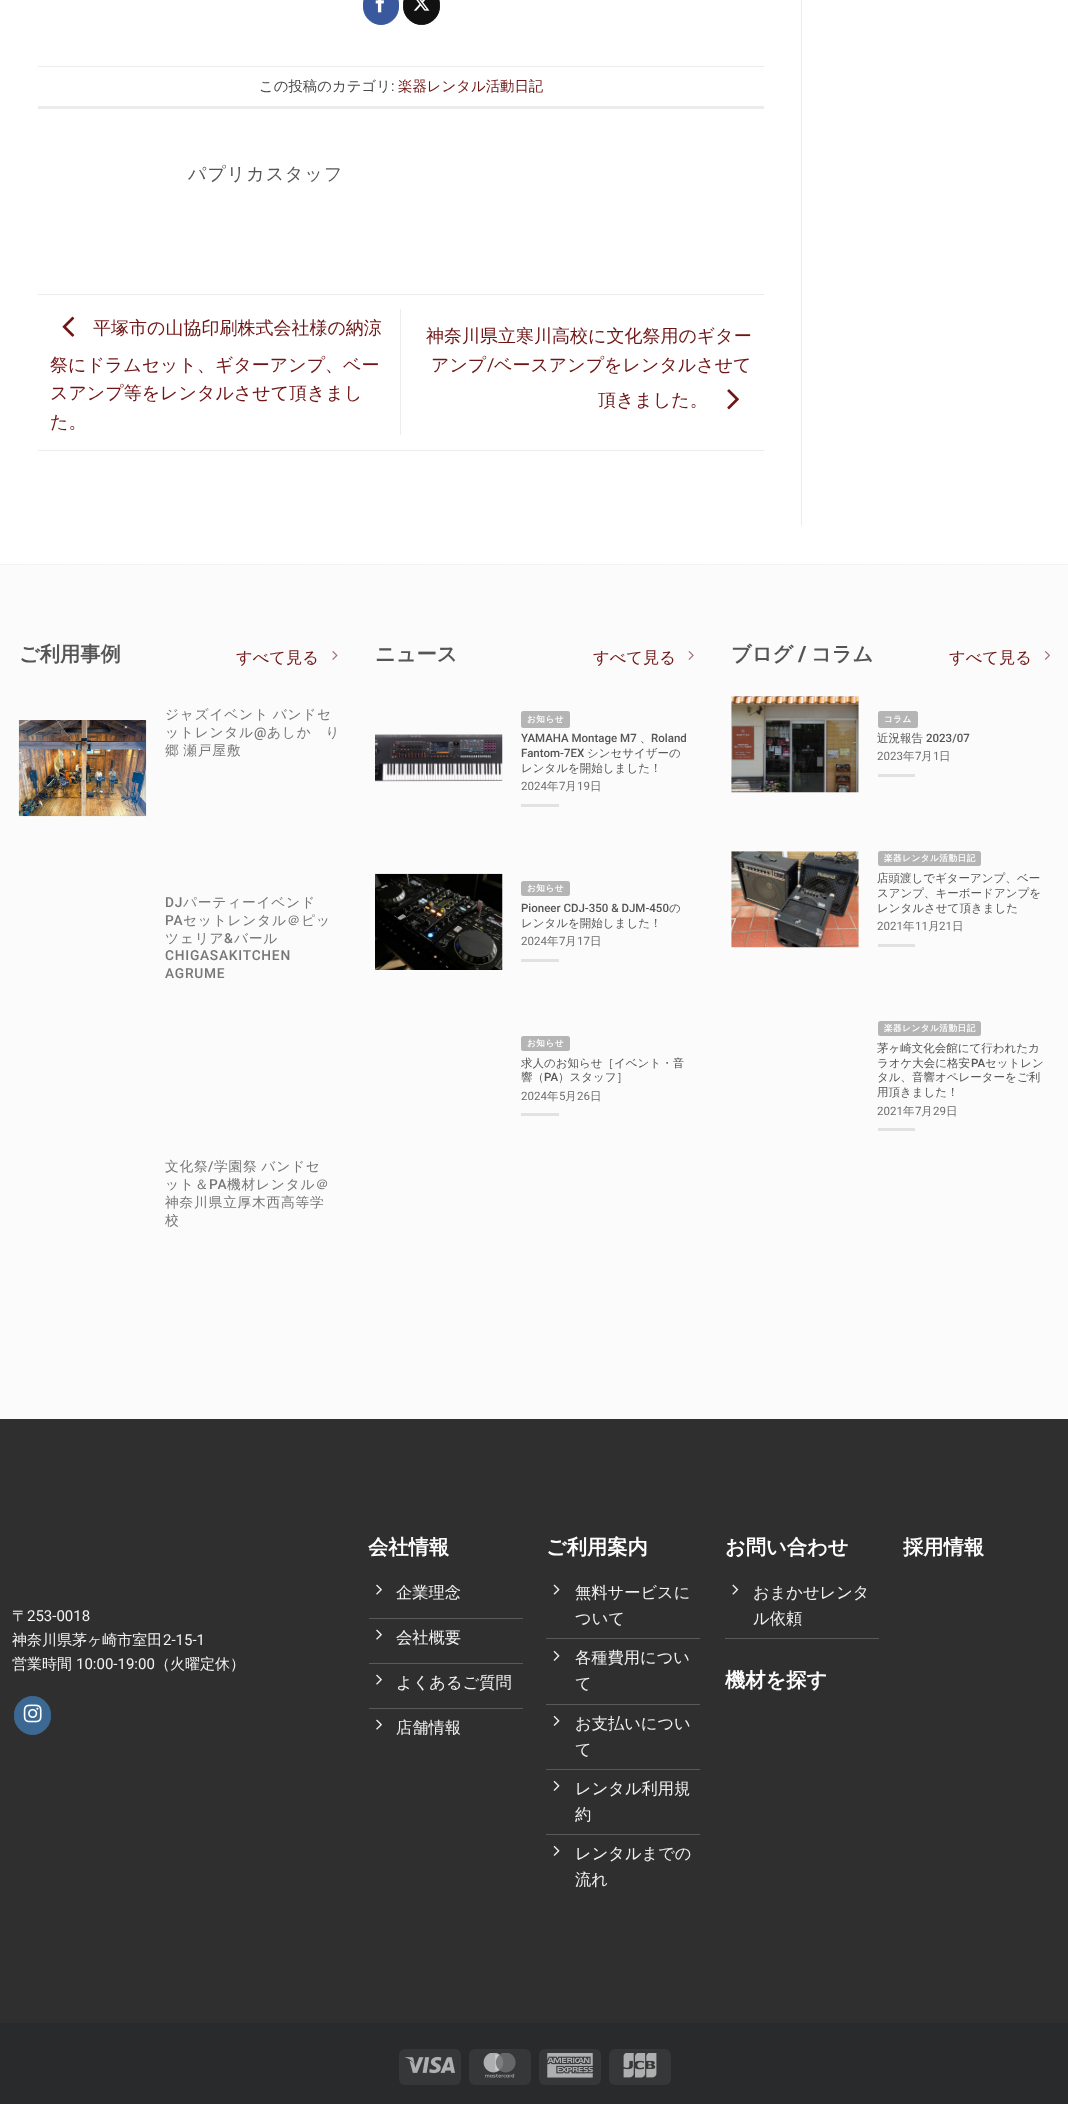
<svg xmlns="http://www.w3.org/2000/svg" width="1068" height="2104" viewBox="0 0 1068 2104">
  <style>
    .t1 { font: 500 14.4px WenQuanYi Zen Hei; fill: #4a4a4a; }
    .t2 { font: 14.4px Roboto; fill: #4a4a4a; }
    .t3 { font: 500 14.4px WenQuanYi Zen Hei; fill: #6f1515; }
    .t4 { font: 500 18px WenQuanYi Zen Hei; letter-spacing: 1px; fill: #555; }
    .t5 { font: 500 18px WenQuanYi Zen Hei; fill: #6f1515; }
    .t6 { font: 18px Roboto; fill: #6f1515; }
    .t7 { font: bold 20.25px WenQuanYi Zen Hei; fill: #555; }
    .t8 { font: 500 16.25px WenQuanYi Zen Hei; fill: #6f1515; }
    .t9 { font: 500 13.75px WenQuanYi Zen Hei; letter-spacing: 0.75px; fill: #767676; }
    .t10 { font: 500 13.75px Roboto; letter-spacing: 0.75px; fill: #767676; }
    .t11 { font: bold 8.6px WenQuanYi Zen Hei; letter-spacing: 0.5px; fill: #fefefe; }
    .t12 { font: 500 11.5px Roboto; fill: #555; }
    .t13 { font: 500 11.5px WenQuanYi Zen Hei; fill: #555; }
    .t14 { font: 11.5px Roboto; fill: #6d6d6d; }
    .t15 { font: 500 11.5px WenQuanYi Zen Hei; fill: #6d6d6d; }
    .t16 { font: bold 20.25px Roboto; fill: #555; }
    .t17 { font: 500 15px WenQuanYi Zen Hei; fill: #f1f1f1; }
    .t18 { font: 15px Roboto; fill: #f1f1f1; }
    .t19 { font: bold 20.25px WenQuanYi Zen Hei; fill: #fefefe; }
    .t20 { font: 500 16.25px WenQuanYi Zen Hei; fill: #f1f1f1; }
  </style>
  <defs>
    <clipPath id="clip1"><rect x="0" y="564" width="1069" height="892"/></clipPath>
  </defs>
  <rect width="100%" height="100%" fill="#fff"/>
  <rect x="363.5" y="-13.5" width="35" height="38" rx="17.5" fill="#3a589d" stroke="#3a589d"/>
  <image x="375" y="0" width="9" height="13" href="images/1.png"/>
  <rect x="403.5" y="-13.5" width="36" height="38" rx="18" fill="#111" stroke="#111"/>
  <image x="413" y="0" width="17" height="11" href="images/2.png"/>
  <rect x="38" y="66" width="726" height="1" fill="#ececec"/>
  <rect x="38" y="106" width="726" height="3" fill="#ececec"/>
  <text x="259" y="91" class="t1">この投稿のカテゴリ</text>
  <text x="391" y="91" class="t2">:</text>
  <text x="398" y="91" class="t3">楽器レンタル活動日記</text>
  <text x="188" y="180" class="t4">パプリカスタッフ</text>
  <rect x="38" y="294" width="726" height="1" fill="#ececec"/>
  <rect x="38" y="450" width="726" height="1" fill="#ececec"/>
  <image x="62" y="316" width="13" height="21" href="images/3.png"/>
  <text x="93" y="334" class="t5">平塚市の山協印刷株式会社様の納涼</text>
  <text x="50" y="371" class="t5">祭にドラムセット、ギターアンプ、ベー</text>
  <text x="50" y="399" class="t5">スアンプ等をレンタルさせて頂きまし</text>
  <text x="50" y="428" class="t5">た。</text>
  <rect x="400" y="309" width="1" height="126" fill="#ececec"/>
  <text x="426" y="342" class="t5">神奈川県立寒川高校に文化祭用のギター</text>
  <text x="431" y="371" class="t5">アンプ</text>
  <text x="487" y="371" class="t6">/</text>
  <text x="494" y="371" class="t5">ベースアンプをレンタルさせて</text>
  <text x="598" y="406" class="t5">頂きました。</text>
  <image x="727" y="389" width="12" height="21" href="images/4.png"/>
  <rect x="801" y="0" width="1" height="526" fill="#ececec"/>
  <rect x="0" y="564" width="1068" height="855" fill="#fbfbfb"/>
  <g clip-path="url(#clip1)">
    <path d="M0 564.5H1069" fill="none" stroke="#ececec" stroke-width="1.2" stroke-dasharray="1.25 1.25"/>
  </g>
  <text x="19" y="661" class="t7">ご利用事例</text>
  <text x="236" y="663" class="t8">すべて見る</text>
  <image x="332" y="651" width="6" height="9" href="images/5.png"/>
  <image x="18" y="720" width="129" height="97" href="images/6.png"/>
  <text x="165" y="719" word-spacing="-1" class="t9">ジャズイベント バンドセ</text>
  <text x="165" y="737" class="t9">ットレンタル</text>
  <text x="254" y="737" class="t10">@</text>
  <text x="267" y="737" class="t9">あしがり</text>
  <text x="165" y="755" word-spacing="-1" class="t9">郷 瀬戸屋敷</text>
  <text x="165" y="907" class="t10">DJ</text>
  <text x="183" y="907" class="t9">パーティーイベンド</text>
  <text x="165" y="925" class="t10">PA</text>
  <text x="183" y="925" class="t9">セットレンタル＠ピッ</text>
  <text x="165" y="943" class="t9">ツェリア</text>
  <text x="224" y="943" class="t10">&amp;</text>
  <text x="234" y="943" class="t9">バール</text>
  <text x="165" y="960" class="t10">CHIGASAKITCHEN</text>
  <text x="165" y="978" class="t10">AGRUME</text>
  <text x="165" y="1171" class="t9">文化祭</text>
  <text x="208" y="1171" class="t10">/</text>
  <text x="214" y="1171" word-spacing="-1" class="t9">学園祭 バンドセ</text>
  <text x="165" y="1189" class="t9">ット＆</text>
  <text x="209" y="1189" class="t10">PA</text>
  <text x="227" y="1189" class="t9">機材レンタル＠</text>
  <text x="165" y="1207" class="t9">神奈川県立厚木西高等学</text>
  <text x="165" y="1225" class="t9">校</text>
  <text x="375" y="661" class="t7">ニュース</text>
  <text x="593" y="663" class="t8">すべて見る</text>
  <image x="688" y="651" width="6" height="9" href="images/7.png"/>
  <image x="375" y="734" width="128" height="48" href="images/8.png"/>
  <rect x="521" y="711" width="49" height="17" rx="2.5" fill="#b5b5b5"/>
  <text x="527" y="722" class="t11">お知らせ</text>
  <text x="521" y="742" class="t12">YAMAHA Montage M7</text>
  <text x="640" y="742" class="t13">、</text>
  <text x="651" y="742" class="t12">Roland</text>
  <text x="521" y="757" class="t12">Fantom-7EX</text>
  <text x="587" y="757" class="t13">シンセサイザーの</text>
  <text x="521" y="772" class="t13">レンタルを開始しました！</text>
  <text x="521" y="790" class="t14">2024</text>
  <text x="547" y="790" class="t15">年</text>
  <text x="559" y="790" class="t14">7</text>
  <text x="565" y="790" class="t15">月</text>
  <text x="577" y="790" class="t14">19</text>
  <text x="590" y="790" class="t15">日</text>
  <rect x="521" y="804" width="38" height="3" fill="#e2e2e2"/>
  <image x="375" y="873" width="128" height="97" href="images/9.png"/>
  <rect x="521" y="881" width="49" height="15" rx="2.5" fill="#b5b5b5"/>
  <text x="527" y="891" class="t11">お知らせ</text>
  <text x="521" y="912" class="t12">Pioneer CDJ-350 &amp; DJM-450</text>
  <text x="669" y="912" class="t13">の</text>
  <text x="521" y="927" class="t13">レンタルを開始しました！</text>
  <text x="521" y="945" class="t14">2024</text>
  <text x="547" y="945" class="t15">年</text>
  <text x="559" y="945" class="t14">7</text>
  <text x="565" y="945" class="t15">月</text>
  <text x="577" y="945" class="t14">17</text>
  <text x="590" y="945" class="t15">日</text>
  <rect x="521" y="959" width="38" height="3" fill="#e2e2e2"/>
  <rect x="521" y="1036" width="49" height="15" rx="2.5" fill="#b5b5b5"/>
  <text x="527" y="1046" class="t11">お知らせ</text>
  <text x="521" y="1067" class="t13">求人のお知らせ［イベント・音</text>
  <text x="521" y="1081" class="t13">響（</text>
  <text x="544" y="1081" class="t12">PA</text>
  <text x="558" y="1081" class="t13">）スタッフ］</text>
  <text x="521" y="1100" class="t14">2024</text>
  <text x="547" y="1100" class="t15">年</text>
  <text x="559" y="1100" class="t14">5</text>
  <text x="565" y="1100" class="t15">月</text>
  <text x="577" y="1100" class="t14">26</text>
  <text x="590" y="1100" class="t15">日</text>
  <rect x="521" y="1113" width="38" height="3" fill="#e2e2e2"/>
  <text x="731" y="661" class="t7">ブログ</text>
  <text x="798" y="661" class="t16">/</text>
  <text x="811" y="661" class="t7">コラム</text>
  <text x="949" y="663" class="t8">すべて見る</text>
  <image x="1044" y="651" width="6" height="9" href="images/10.png"/>
  <image x="731" y="696" width="128" height="97" href="images/11.png"/>
  <rect x="878" y="711" width="40" height="17" rx="2.5" fill="#b5b5b5"/>
  <text x="884" y="722" class="t11">コラム</text>
  <text x="877" y="742" class="t13">近況報告</text>
  <text x="926" y="742" class="t12">2023/07</text>
  <text x="877" y="760" class="t14">2023</text>
  <text x="903" y="760" class="t15">年</text>
  <text x="915" y="760" class="t14">7</text>
  <text x="921" y="760" class="t15">月</text>
  <text x="933" y="760" class="t14">1</text>
  <text x="939" y="760" class="t15">日</text>
  <rect x="878" y="774" width="37" height="3" fill="#e2e2e2"/>
  <image x="731" y="851" width="128" height="97" href="images/12.png"/>
  <rect x="878" y="851" width="103" height="15" rx="2.5" fill="#b5b5b5"/>
  <text x="884" y="861" class="t11">楽器レンタル活動日記</text>
  <text x="877" y="882" class="t13">店頭渡しでギターアンプ、ベー</text>
  <text x="877" y="897" class="t13">スアンプ、キーボードアンプを</text>
  <text x="877" y="912" class="t13">レンタルさせて頂きました</text>
  <text x="877" y="930" class="t14">2021</text>
  <text x="903" y="930" class="t15">年</text>
  <text x="915" y="930" class="t14">11</text>
  <text x="928" y="930" class="t15">月</text>
  <text x="939" y="930" class="t14">21</text>
  <text x="952" y="930" class="t15">日</text>
  <rect x="878" y="944" width="37" height="3" fill="#e2e2e2"/>
  <rect x="878" y="1021" width="103" height="15" rx="2.5" fill="#b5b5b5"/>
  <text x="884" y="1031" class="t11">楽器レンタル活動日記</text>
  <text x="877" y="1052" class="t13">茅ヶ崎文化会館にて行われたカ</text>
  <text x="877" y="1067" class="t13">ラオケ大会に格安</text>
  <text x="971" y="1067" class="t12">PA</text>
  <text x="985" y="1067" class="t13">セットレン</text>
  <text x="877" y="1081" class="t13">タル、音響オペレーターをご利</text>
  <text x="877" y="1096" class="t13">用頂きました！</text>
  <text x="877" y="1115" class="t14">2021</text>
  <text x="903" y="1115" class="t15">年</text>
  <text x="915" y="1115" class="t14">7</text>
  <text x="921" y="1115" class="t15">月</text>
  <text x="933" y="1115" class="t14">29</text>
  <text x="946" y="1115" class="t15">日</text>
  <rect x="878" y="1128" width="37" height="3" fill="#e2e2e2"/>
  <rect x="0" y="1419" width="1068" height="604" fill="#2f2f2f"/>
  <text x="12" y="1621" class="t17">〒</text>
  <text x="27" y="1621" class="t18">253-0018</text>
  <text x="12" y="1645" class="t17">神奈川県茅ヶ崎市室田</text>
  <text x="163" y="1645" class="t18">2-15-1</text>
  <text x="12" y="1669" class="t17">営業時間</text>
  <text x="76" y="1669" class="t18">10:00-19:00</text>
  <text x="155" y="1669" class="t17">（火曜定休）</text>
  <rect x="14.5" y="1696.5" width="36" height="38" rx="18" fill="#3b6994" stroke="#3b6994"/>
  <image x="23" y="1704" width="19" height="19" href="images/13.png"/>
  <text x="368" y="1554" class="t19">会社情報</text>
  <rect x="369" y="1618" width="154" height="1" fill="#595959"/>
  <image x="376" y="1584" width="6" height="11" href="images/14.png"/>
  <text x="396" y="1598" class="t20">企業理念</text>
  <rect x="369" y="1663" width="154" height="1" fill="#595959"/>
  <image x="376" y="1629" width="6" height="11" href="images/14.png"/>
  <text x="396" y="1643" class="t20">会社概要</text>
  <rect x="369" y="1708" width="154" height="1" fill="#595959"/>
  <image x="376" y="1674" width="6" height="11" href="images/14.png"/>
  <text x="396" y="1688" class="t20">よくあるご質問</text>
  <image x="376" y="1719" width="6" height="11" href="images/14.png"/>
  <text x="396" y="1733" class="t20">店舗情報</text>
  <text x="546" y="1554" class="t19">ご利用案内</text>
  <rect x="546" y="1638" width="154" height="1" fill="#595959"/>
  <image x="553" y="1584" width="7" height="11" href="images/15.png"/>
  <text x="575" y="1598" class="t20">無料サービスに</text>
  <text x="575" y="1624" class="t20">ついて</text>
  <rect x="546" y="1704" width="154" height="1" fill="#595959"/>
  <image x="553" y="1650" width="7" height="11" href="images/16.png"/>
  <text x="575" y="1663" class="t20">各種費用につい</text>
  <text x="575" y="1689" class="t20">て</text>
  <rect x="546" y="1769" width="154" height="1" fill="#595959"/>
  <image x="553" y="1715" width="7" height="11" href="images/16.png"/>
  <text x="575" y="1729" class="t20">お支払いについ</text>
  <text x="575" y="1755" class="t20">て</text>
  <rect x="546" y="1834" width="154" height="1" fill="#595959"/>
  <image x="553" y="1780" width="7" height="11" href="images/16.png"/>
  <text x="575" y="1794" class="t20">レンタル利用規</text>
  <text x="575" y="1820" class="t20">約</text>
  <image x="553" y="1845" width="7" height="11" href="images/16.png"/>
  <text x="575" y="1859" class="t20">レンタルまでの</text>
  <text x="575" y="1885" class="t20">流れ</text>
  <text x="725" y="1554" class="t19">お問い合わせ</text>
  <rect x="725" y="1638" width="154" height="1" fill="#595959"/>
  <image x="732" y="1584" width="7" height="11" href="images/17.png"/>
  <text x="753" y="1598" class="t20">おまかせレンタ</text>
  <text x="753" y="1624" class="t20">ル依頼</text>
  <text x="725" y="1687" class="t19">機材を探す</text>
  <text x="903" y="1554" class="t19">採用情報</text>
  <rect x="0" y="2023" width="1068" height="81" fill="#282a2b"/>
  <rect x="399" y="2049" width="62" height="36" rx="6" fill="#353738"/>
  <image x="405" y="2056" width="50" height="18" href="images/18.png"/>
  <rect x="469" y="2049" width="62" height="36" rx="6" fill="#353738"/>
  <image x="483" y="2053" width="33" height="25" href="images/19.png"/>
  <rect x="539" y="2049" width="62" height="36" rx="6" fill="#353738"/>
  <image x="547" y="2053" width="46" height="25" href="images/20.png"/>
  <rect x="609" y="2049" width="62" height="36" rx="6" fill="#353738"/>
  <image x="623" y="2053" width="34" height="25" href="images/21.png"/>
</svg>
